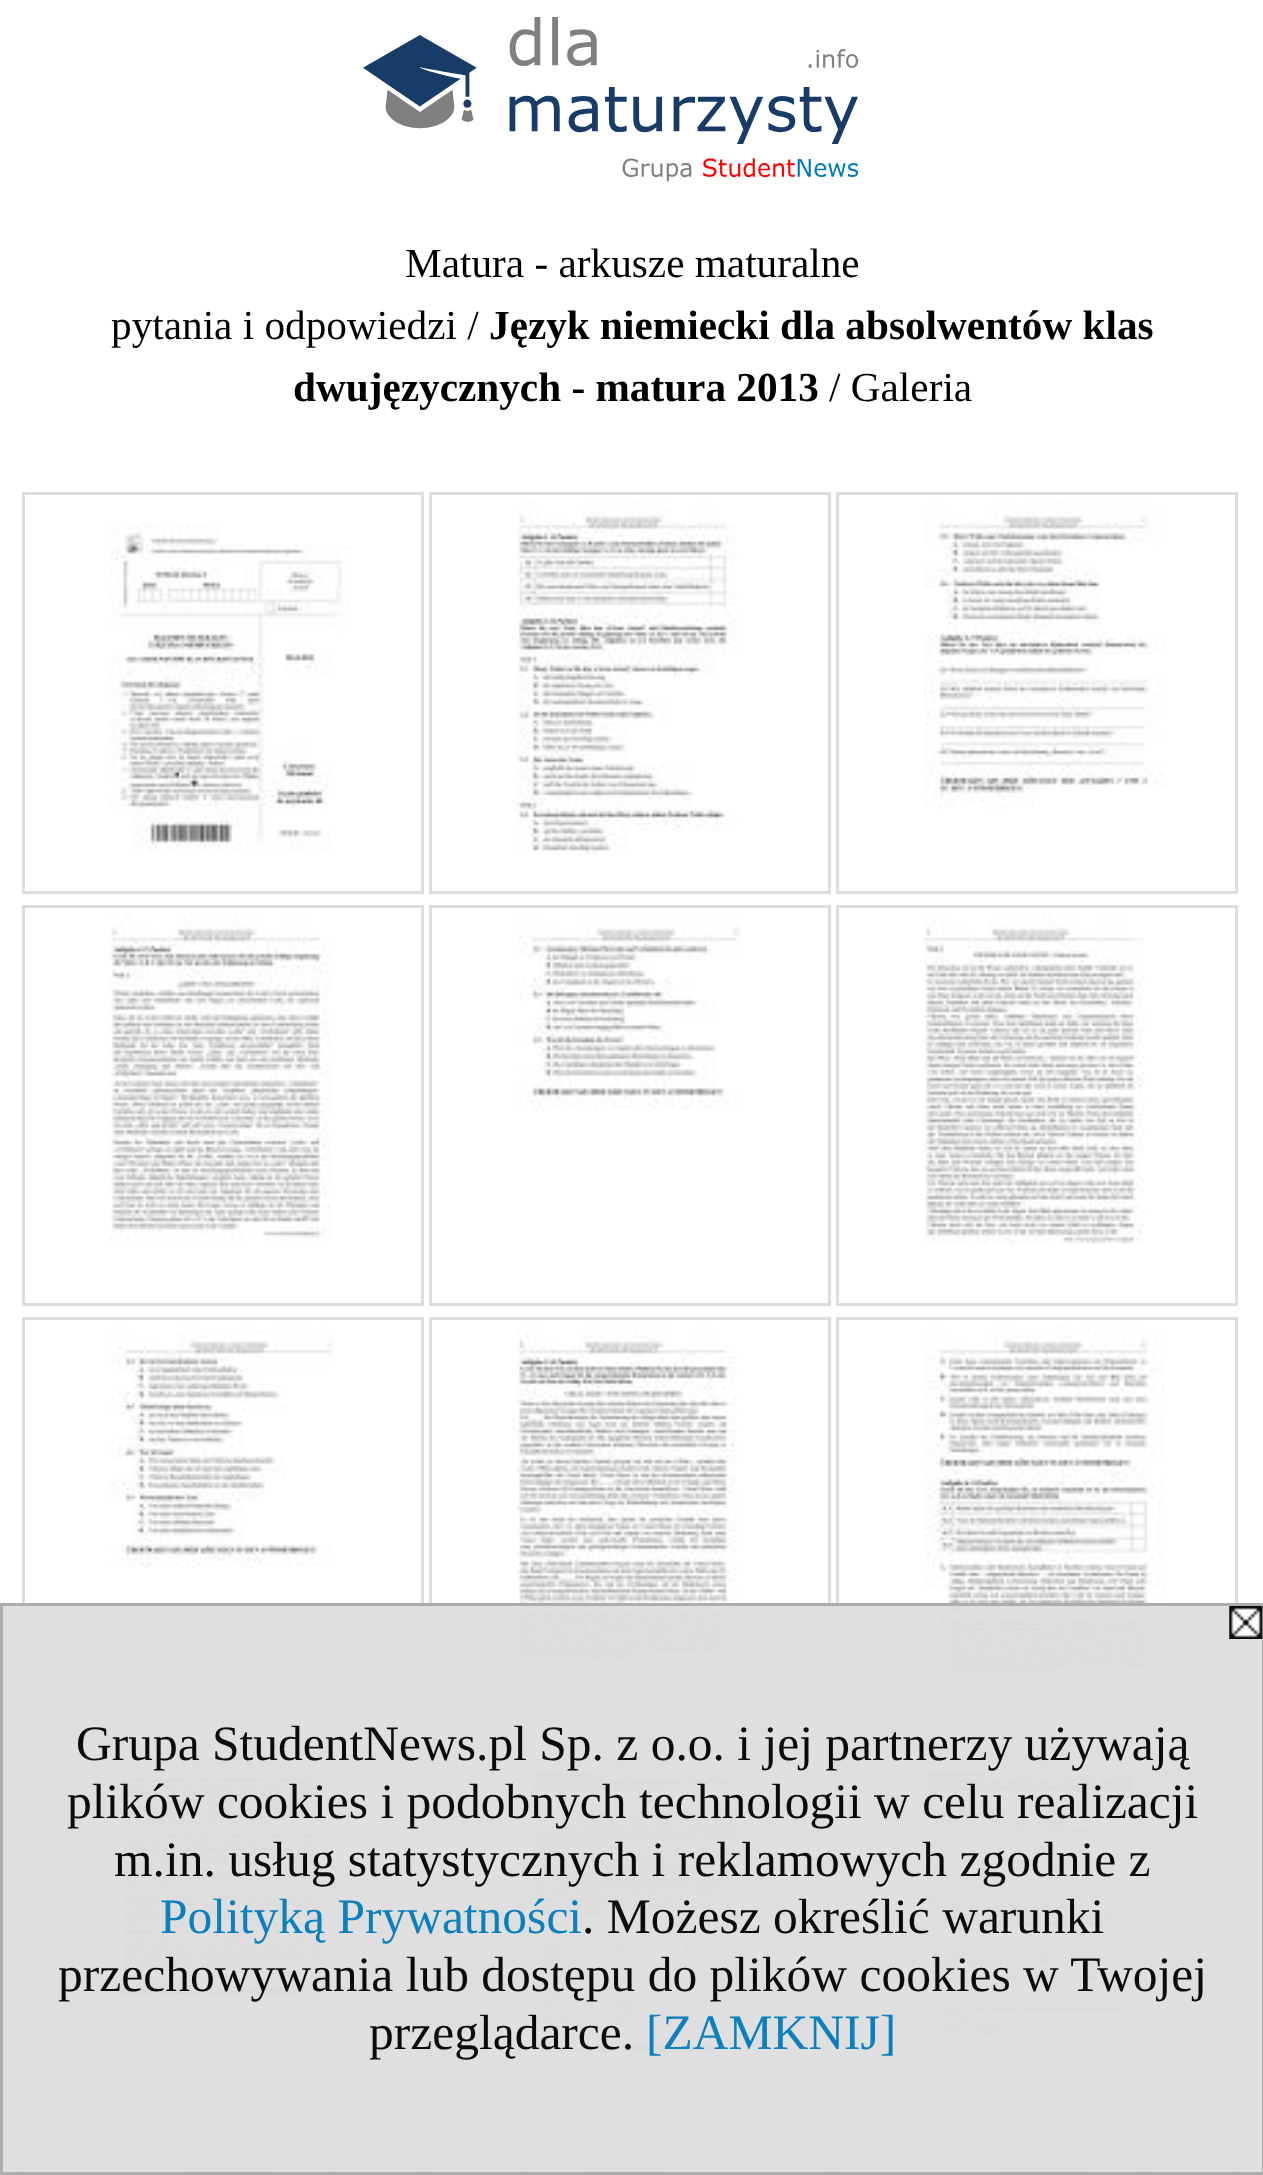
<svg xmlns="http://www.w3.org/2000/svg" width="1263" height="2175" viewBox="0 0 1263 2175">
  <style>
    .t1 { font: 41.25px Liberation Serif; fill: #000; }
    .t2 { font: bold 41.25px Liberation Serif; fill: #000; }
    .t3 { font: 49.5px Liberation Serif; fill: #0b0b0b; }
    .t4 { font: 49.5px Liberation Serif; fill: #0b80bc; }
  </style>
  <rect width="100%" height="100%" fill="#fff"/>
  <image x="363" y="17" width="495" height="165" href="images/1.png"/>
  <text x="405" y="277" class="t1">Matura - arkusze maturalne</text>
  <text x="111" y="339" class="t1">pytania i odpowiedzi /</text>
  <text x="489" y="339" class="t2">Język niemiecki dla absolwentów klas</text>
  <text x="293" y="401" class="t2">dwujęzycznych - matura 2013</text>
  <text x="829" y="401" class="t1">/ Galeria</text>
  <rect x="23.5" y="493.5" width="399" height="399" fill="none" stroke="#ddd" stroke-width="3"/>
  <image x="110" y="523" width="241" height="329" href="images/2.png"/>
  <rect x="430.5" y="493.5" width="399" height="399" fill="none" stroke="#ddd" stroke-width="3"/>
  <image x="516" y="501" width="221" height="353" href="images/3.png"/>
  <rect x="837.5" y="493.5" width="399" height="399" fill="none" stroke="#ddd" stroke-width="3"/>
  <image x="924" y="501" width="242" height="308" href="images/4.png"/>
  <rect x="23.5" y="906.5" width="399" height="398" fill="none" stroke="#ddd" stroke-width="3"/>
  <image x="109" y="913" width="222" height="329" href="images/5.png"/>
  <rect x="430.5" y="906.5" width="399" height="398" fill="none" stroke="#ddd" stroke-width="3"/>
  <image x="518" y="913" width="224" height="198" href="images/6.png"/>
  <rect x="837.5" y="906.5" width="399" height="398" fill="none" stroke="#ddd" stroke-width="3"/>
  <image x="923" y="913" width="222" height="331" href="images/7.png"/>
  <rect x="23.5" y="1318.5" width="399" height="399" fill="none" stroke="#ddd" stroke-width="3"/>
  <image x="110" y="1326" width="225" height="242" href="images/8.png"/>
  <rect x="430.5" y="1318.5" width="399" height="399" fill="none" stroke="#ddd" stroke-width="3"/>
  <image x="516" y="1326" width="221" height="352" href="images/9.png"/>
  <rect x="837.5" y="1318.5" width="399" height="399" fill="none" stroke="#ddd" stroke-width="3"/>
  <image x="923" y="1326" width="243" height="352" href="images/10.png"/>
  <rect x="23.5" y="1731.5" width="399" height="398" fill="none" stroke="#ddd" stroke-width="3"/>
  <image x="110" y="1738" width="221" height="264" href="images/11.png"/>
  <rect x="430.5" y="1731.5" width="399" height="398" fill="none" stroke="#ddd" stroke-width="3"/>
  <image x="517" y="1738" width="241" height="330" href="images/12.png"/>
  <rect x="837.5" y="1731.5" width="399" height="398" fill="none" stroke="#ddd" stroke-width="3"/>
  <image x="923" y="1738" width="220" height="308" href="images/13.png"/>
  <rect x="23.5" y="2143.5" width="399" height="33" fill="none" stroke="#ddd" stroke-width="3"/>
  <image x="115" y="2151" width="235" height="24" href="images/14.png"/>
  <rect x="430.5" y="2143.5" width="399" height="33" fill="none" stroke="#ddd" stroke-width="3"/>
  <image x="519" y="2151" width="207" height="24" href="images/15.png"/>
  <rect x="837.5" y="2143.5" width="399" height="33" fill="none" stroke="#ddd" stroke-width="3"/>
  <image x="946" y="2151" width="212" height="24" href="images/16.png"/>
  <rect x="0" y="1603" width="1263" height="572" fill="#ddddddf2"/>
  <rect x="1.5" y="1604.5" width="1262" height="569" fill="none" stroke="#aaaaaaf2" stroke-width="3"/>
  <image x="1229" y="1606" width="34" height="33" href="images/17.png"/>
  <text x="76" y="1760" class="t3">Grupa StudentNews.pl Sp. z o.o. i jej partnerzy używają</text>
  <text x="67" y="1818" class="t3">plików cookies i podobnych technologii w celu realizacji</text>
  <text x="114" y="1876" class="t3">m.in. usług statystycznych i reklamowych zgodnie z</text>
  <text x="160" y="1933" class="t4">Polityką Prywatności</text>
  <text x="582" y="1933" class="t3">. Możesz określić warunki</text>
  <text x="58" y="1991" class="t3">przechowywania lub dostępu do plików cookies w Twojej</text>
  <text x="369" y="2049" class="t3">przeglądarce.</text>
  <text x="646" y="2049" class="t4">[ZAMKNIJ]</text>
</svg>
